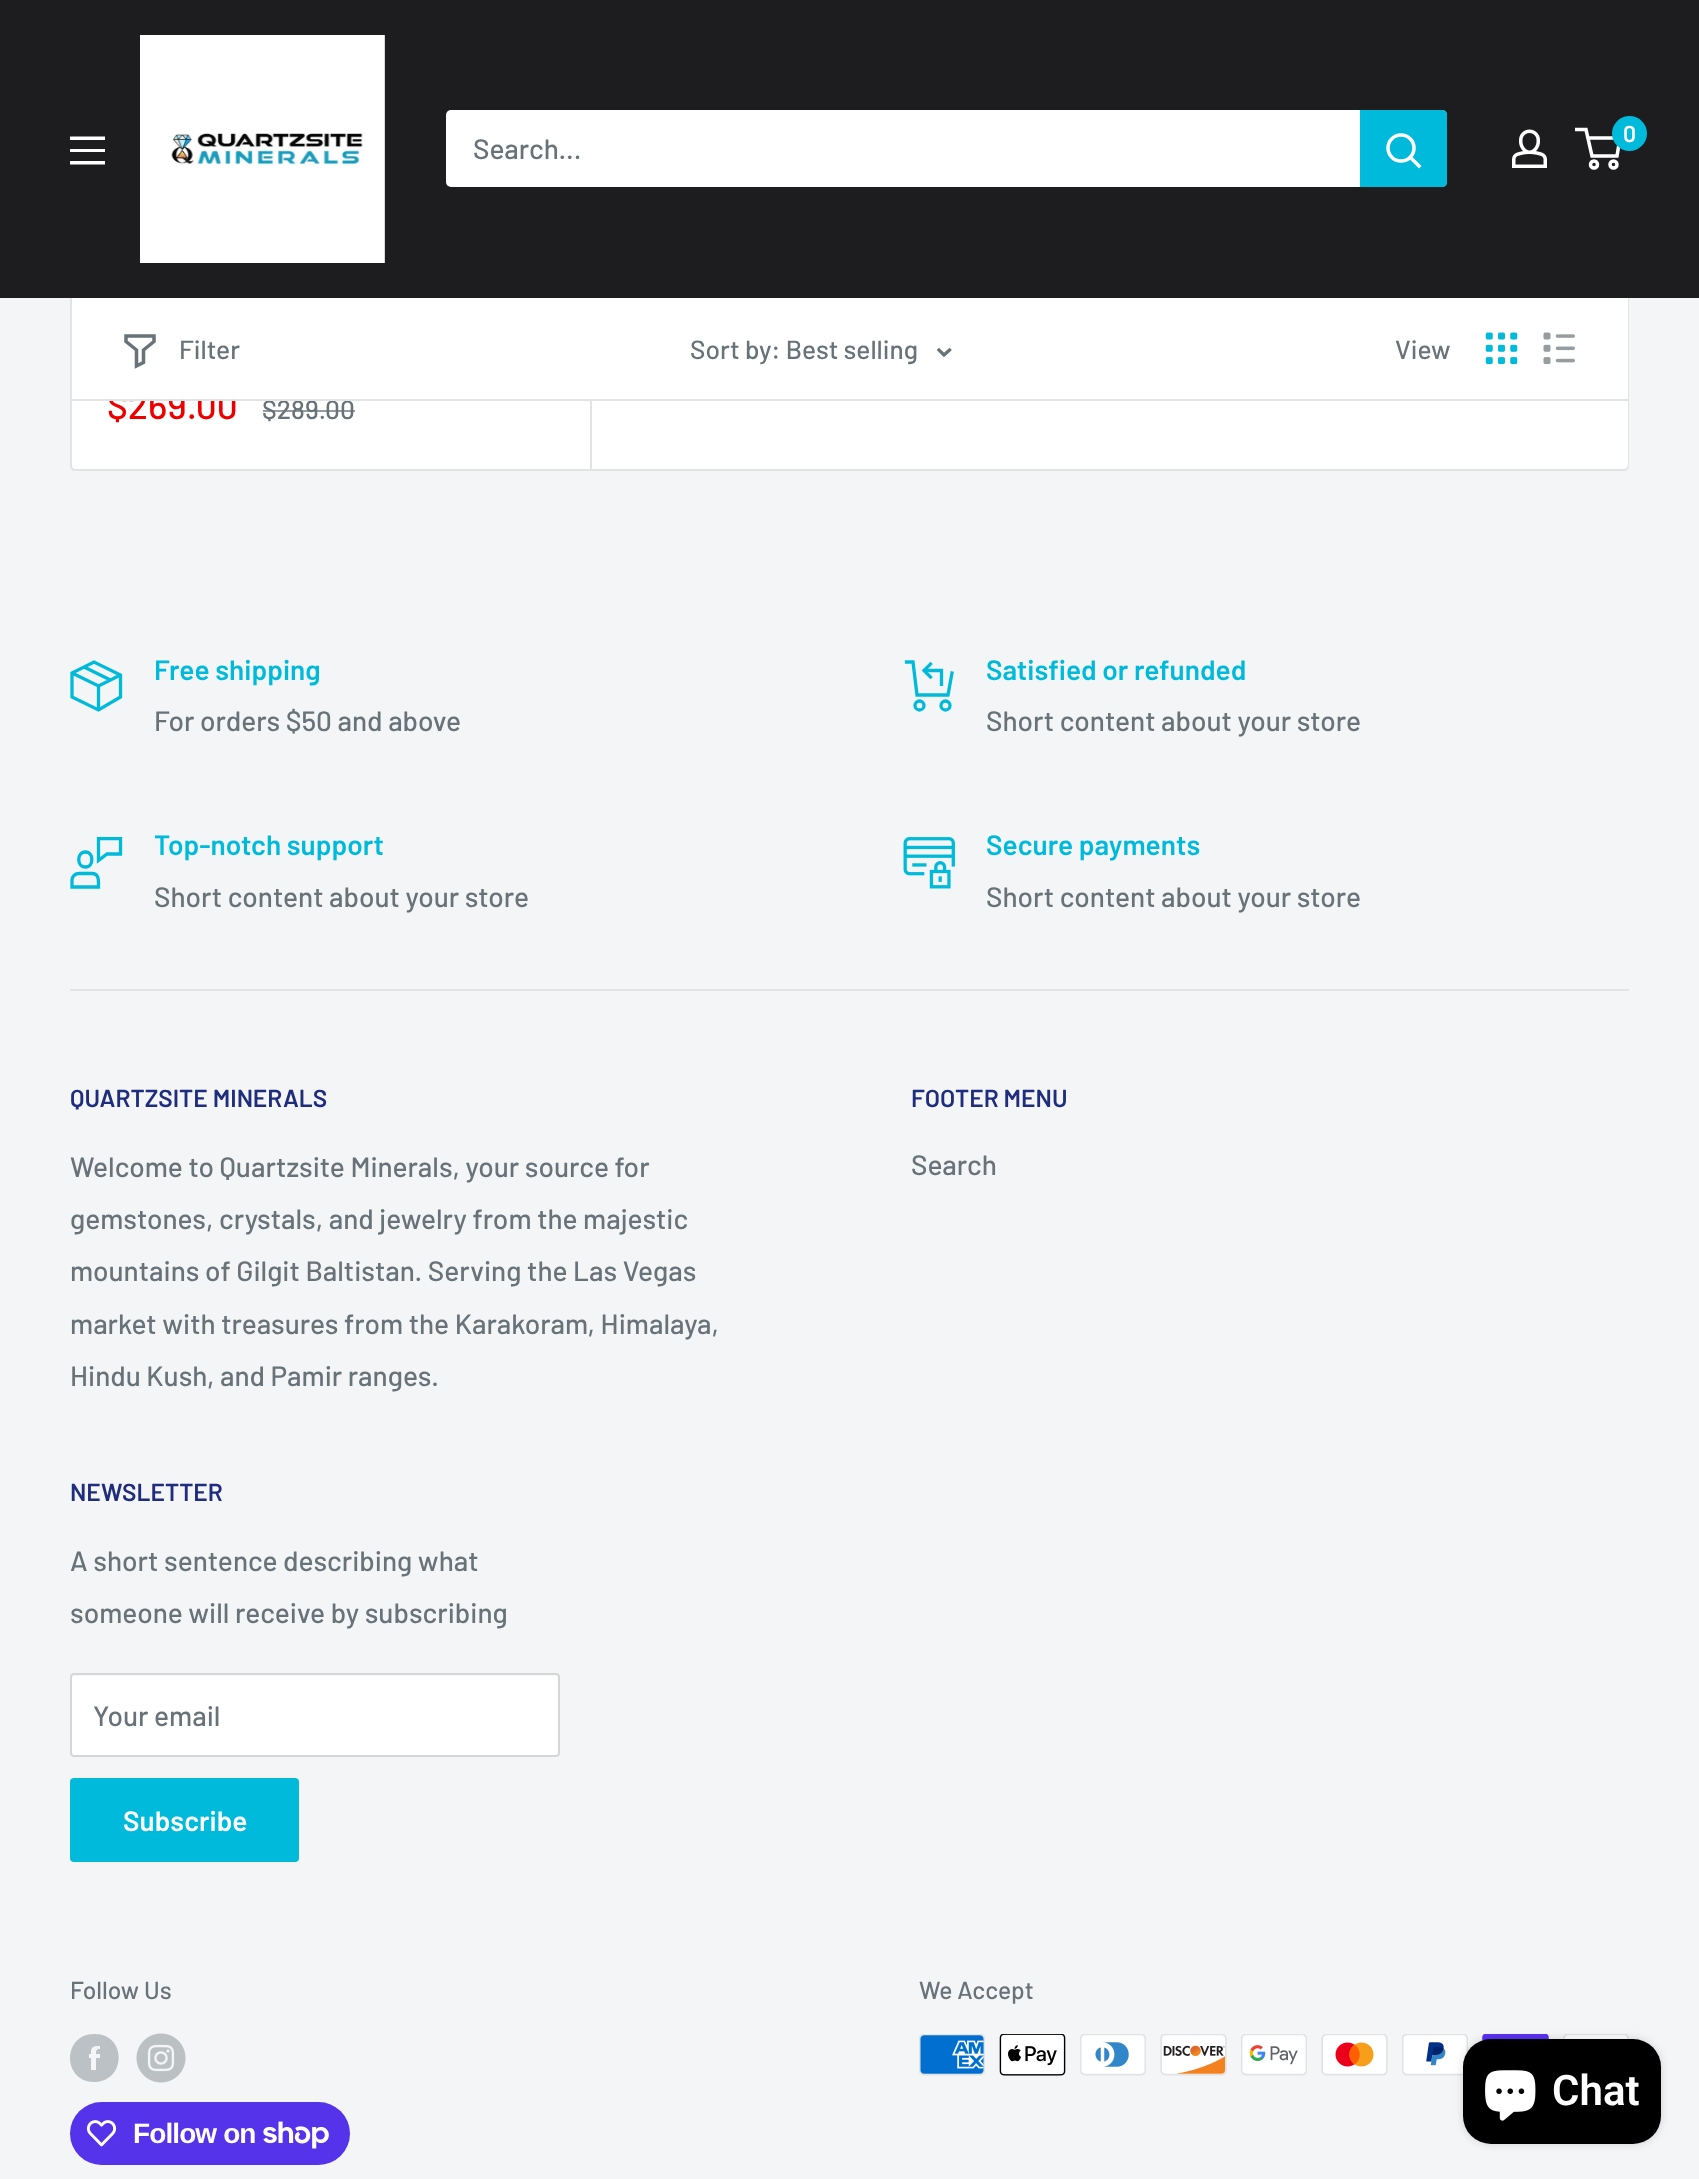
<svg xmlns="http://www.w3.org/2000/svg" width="1699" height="2179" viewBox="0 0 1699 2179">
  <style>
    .t1 { font: 600 23px Barlow; fill: #fff; }
    .t2 { font: 500 28px Barlow; fill: #677279; }
    .t3 { font: 500 37px Barlow; fill: #e00; }
    .t4 { font: 500 26.25px Barlow; fill: #677279; }
    .t5 { font: 600 28px Barlow; fill: #00badb; }
    .t6 { font: 600 24.5px Barlow; fill: #1e2d7d; }
    .t7 { font: 600 28px Barlow; fill: #fff; }
    .t8 { font: 500 24.5px Barlow; fill: #677279; }
    .t9 { font: bold 28px Liberation Sans; letter-spacing: -0.9px; fill: #fff; }
    .t10 { font: 600 42px Roboto; fill: #fff; }
  </style>
  <defs>
    <clipPath id="clip1"><rect x="70" y="837" width="53" height="52"/></clipPath>
  </defs>
  <rect width="100%" height="100%" fill="#f3f5f6"/>
  <path d="M71-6H1628V466C1628 468 1626 470 1624 470H75C73 470 71 468 71 466Z" fill="#fff" stroke="#e1e3e4" stroke-width="2"/>
  <rect x="72" y="-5" width="1556" height="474" rx="5" fill="#fff"/>
  <rect x="0" y="0" width="1699" height="298" fill="#1d1d1f"/>
  <image x="140" y="35" width="245" height="228" href="images/1.png"/>
  <image x="1512" y="129" width="35" height="39" href="images/2.png"/>
  <circle cx="1594" cy="164.5" r="3.5" fill="none" stroke="#fff" stroke-width="3.5"/>
  <circle cx="1613.5" cy="164.5" r="3.5" fill="none" stroke="#fff" stroke-width="3.5"/>
  <path d="M1588 138H1620L1617 156H1592L1586 129.5H1575" fill="none" stroke="#fff" stroke-width="3.5"/>
  <circle cx="1629.5" cy="133.5" r="17.5" fill="#00badb"/>
  <text x="1623" y="142" class="t1">0</text>
  <path d="M70 161H105V164.5H70ZM70 136.5H105V140H70ZM70 149H105V152H70Z" fill="#fff" fill-rule="evenodd"/>
  <rect x="446" y="110" width="1001" height="77" rx="5" fill="#fff"/>
  <text x="473" y="159" class="t2">Search...</text>
  <path d="M1360 110H1442C1445 110 1447 112 1447 115V182C1447 185 1445 187 1442 187H1360Z" fill="#00badb"/>
  <path d="M1419 166L1410.5 157.5" fill="none" stroke="#fff" stroke-width="3.5" stroke-linecap="square"/>
  <circle cx="1401" cy="148" r="13" fill="none" stroke="#fff" stroke-width="3.5"/>
  <text x="107" y="419" class="t3">$269.00</text>
  <text x="262" y="419" class="t4">$289.00</text>
  <path d="M72 399V401H1628V299V399Z" fill="#e1e3e4"/>
  <rect x="108" y="389" width="163" height="10" fill="#fff"/>
  <path d="M154 341.5L143.5 350V362.5L136.5 366V350L126 341.5V336H154Z" fill="none" stroke="#677279" stroke-width="3.5" stroke-linecap="square"/>
  <text x="179" y="359" class="t4">Filter</text>
  <text x="690" y="359" class="t4">Sort by: Best selling</text>
  <path d="M949.5 350L944 355L939 350" fill="none" stroke="#677279" stroke-width="3.3" stroke-linecap="square"/>
  <text x="1395" y="359" class="t4">View</text>
  <image x="1485" y="332" width="33" height="33" href="images/3.png"/>
  <image x="1543" y="332" width="32" height="33" href="images/4.png"/>
  <rect x="263" y="410" width="92" height="2" fill="#677279b3"/>
  <rect x="590" y="401" width="2" height="68" fill="#e1e3e4"/>
  <path d="M84 667L110.5 680M120.5 675L98.5 686L72 673M98.5 686V710" fill="none" stroke="#00badb" stroke-width="3.3"/>
  <path d="M120.5 675V697L98.5 710L72 697V673L94 662Z" fill="none" stroke="#00badb" stroke-width="3.3" stroke-linecap="square"/>
  <text x="154" y="680" class="t5">Free shipping</text>
  <text x="154" y="731" class="t2">For orders $50 and above</text>
  <path d="M924 670.5H941.5V686" fill="none" stroke="#00badb" stroke-width="3.3"/>
  <path d="M930.5 677L924 670.5L930.5 664" fill="none" stroke="#00badb" stroke-width="3.3" stroke-linecap="square"/>
  <path d="M952 673L948 695H917L913 662H906.5" fill="none" stroke="#00badb" stroke-width="3.3" stroke-linecap="square"/>
  <circle cx="919.5" cy="705.5" r="4.5" fill="none" stroke="#00badb" stroke-width="3.3"/>
  <circle cx="945.5" cy="705.5" r="4.5" fill="none" stroke="#00badb" stroke-width="3.3"/>
  <text x="986" y="680" class="t5">Satisfied or refunded</text>
  <text x="986" y="731" class="t2">Short content about your store</text>
  <path d="M92 873.5H79C75 873.5 72 876.5 72 880V887H98.5C98.5 881.5 99.5 873.5 92 873.5ZM85.5 867C76.5 867 76.5 852 85.5 852C94 852 94 867 85.5 867Z" fill="none" stroke="#00badb" stroke-width="3.3" stroke-linecap="square"/>
  <g clip-path="url(#clip1)">
    <path d="M98.5 838.5V860.5L107 854H120.5V838.5Z" fill="none" stroke="#00badb" stroke-width="3.3" stroke-linecap="square"/>
  </g>
  <text x="154" y="855" class="t5">Top-notch support</text>
  <text x="154" y="907" class="t2">Short content about your store</text>
  <image x="903" y="837" width="52" height="52" href="images/5.png"/>
  <text x="986" y="855" class="t5">Secure payments</text>
  <text x="986" y="907" class="t2">Short content about your store</text>
  <rect x="70" y="989" width="1559" height="2" fill="#e1e3e4"/>
  <text x="70" y="1107" class="t6">QUARTZSITE MINERALS</text>
  <text x="70" y="1177" class="t2">Welcome to Quartzsite Minerals, your source for</text>
  <text x="70" y="1229" class="t2">gemstones, crystals, and jewelry from the majestic</text>
  <text x="70" y="1281" class="t2">mountains of Gilgit Baltistan. Serving the Las Vegas</text>
  <text x="70" y="1334" class="t2">market with treasures from the Karakoram, Himalaya,</text>
  <text x="70" y="1386" class="t2">Hindu Kush, and Pamir ranges.</text>
  <text x="911" y="1107" class="t6">FOOTER MENU</text>
  <text x="911" y="1175" class="t2">Search</text>
  <text x="70" y="1501" class="t6">NEWSLETTER</text>
  <text x="70" y="1571" class="t2">A short sentence describing what</text>
  <text x="70" y="1623" class="t2">someone will receive by subscribing</text>
  <rect x="70" y="1673" width="490" height="84" rx="4" fill="#fff"/>
  <path d="M74 1676H556C557 1676 558 1677 558 1678C558 1677 558 1675 556 1675H74L72 1676V1678C72 1677 73 1676 74 1676Z" fill="#f8f8f8"/>
  <rect x="71" y="1674" width="488" height="82" rx="3" fill="none" stroke="#d4d6d8" stroke-width="2"/>
  <text x="93" y="1726" class="t2">Your email</text>
  <rect x="70" y="1778" width="229" height="84" rx="4" fill="#00badb"/>
  <text x="123" y="1831" class="t7">Subscribe</text>
  <text x="70" y="1999" class="t8">Follow Us</text>
  <path d="M94 2082C62 2082 62 2034 94 2034C127 2033 127 2082 94 2082ZM100 2054H96C96 2051 96 2049 100 2049V2046C92 2046 91 2047 91 2054H89V2058H91V2070H96V2058H100Z" fill="#bbc1c4" fill-rule="evenodd"/>
  <image x="136" y="2033" width="50" height="50" href="images/6.png"/>
  <rect x="70" y="2102" width="280" height="63" rx="31.5" fill="#5433eb"/>
  <image x="86" y="2120" width="31" height="27" href="images/7.png"/>
  <text x="133" y="2143" class="t9">Follow on</text>
  <image x="263" y="2121" width="66" height="28" href="images/8.png"/>
  <text x="919" y="1999" class="t8">We Accept</text>
  <image x="919" y="2034" width="66" height="42" href="images/9.png"/>
  <image x="999" y="2034" width="67" height="42" href="images/10.png"/>
  <image x="1080" y="2034" width="66" height="42" href="images/11.png"/>
  <image x="1160" y="2034" width="67" height="42" href="images/12.png"/>
  <image x="1241" y="2034" width="66" height="42" href="images/13.png"/>
  <image x="1321" y="2034" width="67" height="42" href="images/14.png"/>
  <image x="1402" y="2034" width="66" height="42" href="images/15.png"/>
  <image x="1482" y="2034" width="67" height="7" href="images/16.png"/>
  <image x="1563" y="2034" width="66" height="5" href="images/17.png"/>
  <rect x="1463" y="2039" width="198" height="105" rx="28" fill="#00000026" filter="blur(4.5px)"/>
  <rect x="1463" y="2039" width="198" height="105" rx="28" fill="#000"/>
  <image x="1485" y="2070" width="51" height="51" href="images/18.png"/>
  <text x="1552" y="2105" class="t10">Chat</text>
</svg>
